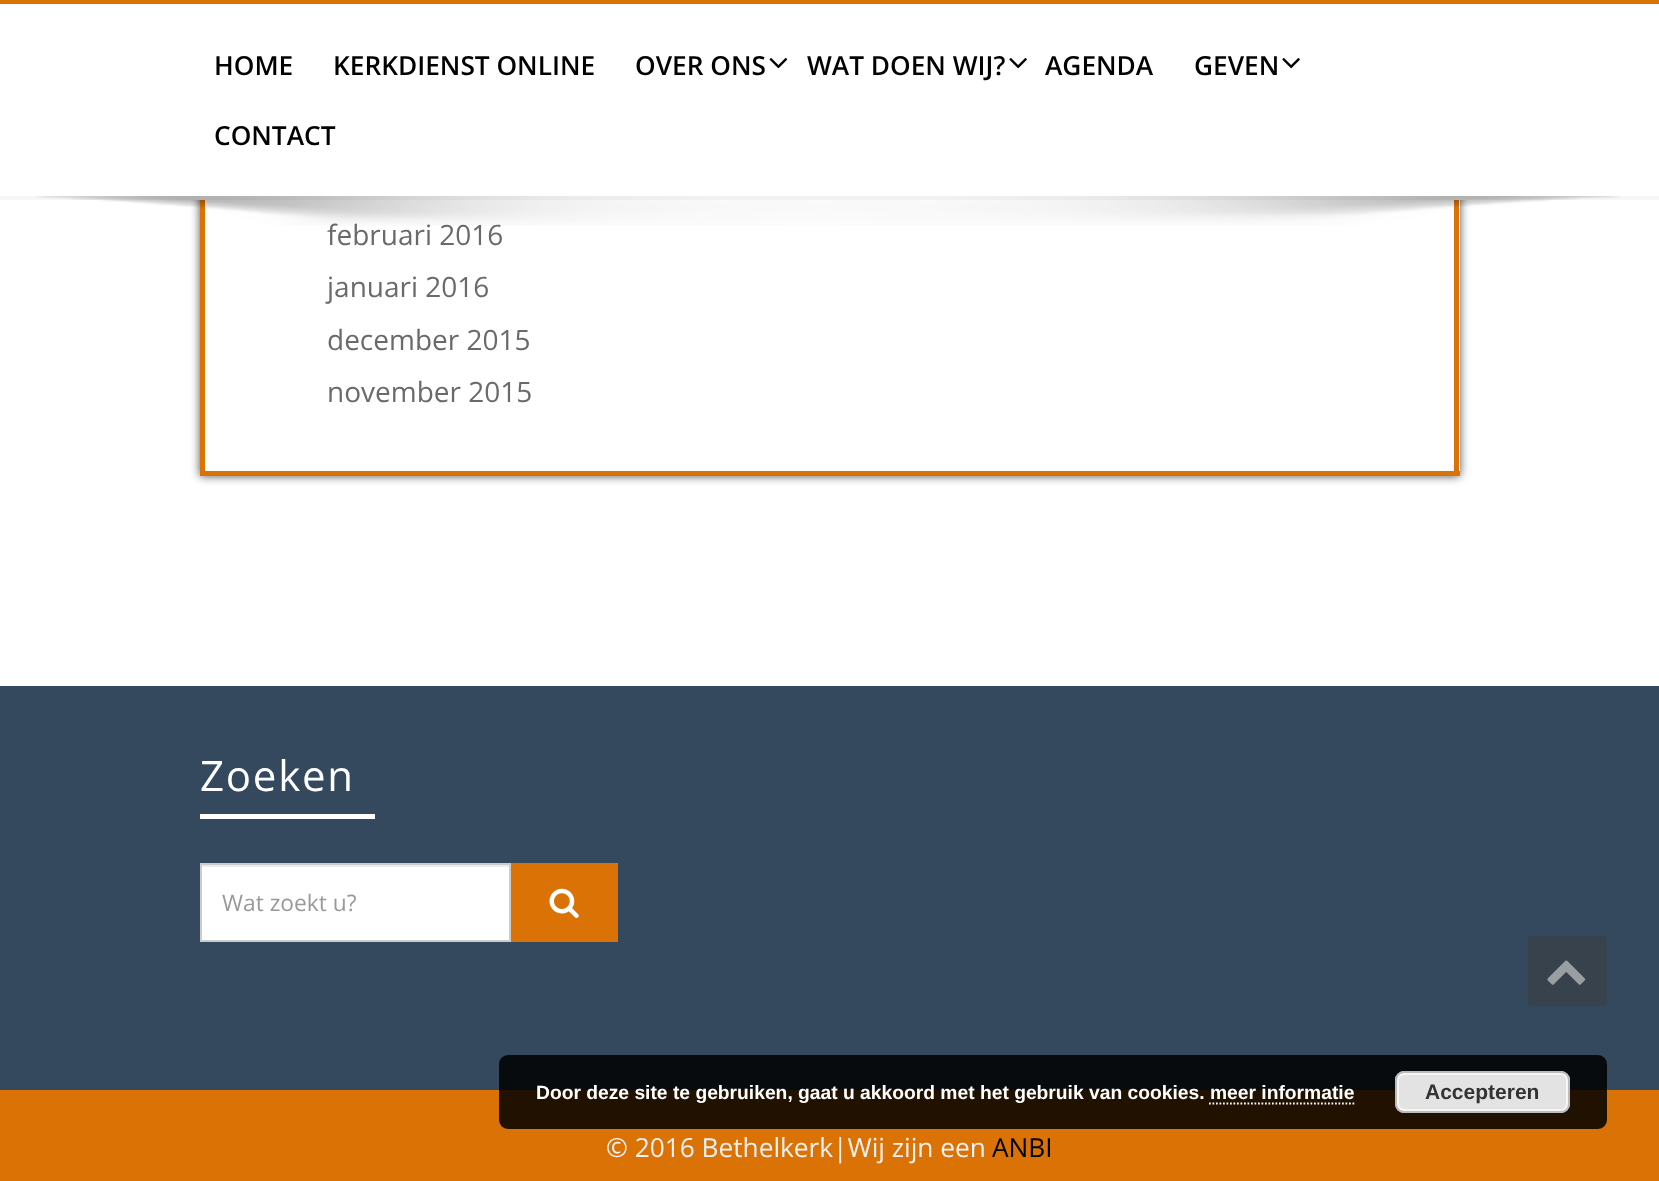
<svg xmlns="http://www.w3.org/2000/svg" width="1659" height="1181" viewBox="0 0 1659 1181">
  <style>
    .t1 { font: 600 26.25px Open Sans; fill: #000; }
    .t2 { font: 28px Open Sans; fill: #6a6a6a; }
    .t3 { font: 42px Open Sans; letter-spacing: 1.75px; fill: #fff; }
    .t4 { font: 22.75px Open Sans; fill: #999; }
    .t5 { font: 26.25px Open Sans; fill: #f2f2f2; }
    .t6 { font: 26.25px Open Sans; fill: #000; }
    .t7 { font: bold 19.25px Liberation Sans; fill: #fff; }
    .t8 { font: bold 21px Liberation Sans; fill: #333; }
  </style>
  <rect width="100%" height="100%" fill="#fff"/>
  <rect x="200" y="-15" width="1260" height="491" fill="#000000b3" filter="blur(5px)"/>
  <rect x="189" y="4" width="1282" height="192" fill="#fff"/>
  <rect x="0" y="0" width="1659" height="4" fill="#db7205"/>
  <rect x="0" y="196" width="1659" height="4" fill="#f7f5f5"/>
  <text x="214" y="75" class="t1">HOME</text>
  <text x="333" y="75" class="t1">KERKDIENST ONLINE</text>
  <text x="635" y="75" class="t1">OVER ONS</text>
  <image x="769" y="58" width="19" height="11" href="images/1.png"/>
  <text x="807" y="75" class="t1">WAT DOEN WIJ?</text>
  <image x="1009" y="58" width="18" height="11" href="images/2.png"/>
  <text x="1045" y="75" class="t1">AGENDA</text>
  <text x="1194" y="75" class="t1">GEVEN</text>
  <image x="1282" y="58" width="18" height="11" href="images/2.png"/>
  <text x="214" y="145" class="t1">CONTACT</text>
  <rect x="205" y="200" width="1255" height="271" fill="#fff"/>
  <rect x="1454" y="200" width="5" height="276" fill="#db7205"/>
  <rect x="200" y="471" width="1260" height="5" fill="#db7205"/>
  <rect x="200" y="200" width="5" height="276" fill="#db7205"/>
  <text x="327" y="245" class="t2">februari 2016</text>
  <image x="36" y="196" width="1585" height="30" href="images/3.png"/>
  <text x="327" y="297" class="t2">januari 2016</text>
  <text x="327" y="350" class="t2">december 2015</text>
  <text x="327" y="402" class="t2">november 2015</text>
  <rect x="0" y="686" width="1659" height="404" fill="#34495e"/>
  <text x="200" y="791" class="t3">Zoeken</text>
  <rect x="200" y="814" width="175" height="5" fill="#fff"/>
  <rect x="202" y="867" width="307" height="73" fill="#fff"/>
  <rect x="201" y="865" width="308" height="2" fill="#ececec"/>
  <rect x="201" y="864" width="309" height="77" fill="none" stroke="#ccc" stroke-width="2"/>
  <text x="222" y="911" class="t4">Wat zoekt u?</text>
  <rect x="511" y="863" width="107" height="79" fill="#db7205"/>
  <image x="549" y="888" width="30" height="30" href="images/4.png"/>
  <rect x="0" y="1090" width="1659" height="91" fill="#db7205"/>
  <text x="606" y="1157" class="t5">© 2016 Bethelkerk|Wij zijn een</text>
  <text x="992" y="1157" class="t6">ANBI</text>
  <rect x="1528" y="936" width="79" height="70" rx="4" fill="#38424d"/>
  <image x="1547" y="960" width="39" height="25" href="images/5.png"/>
  <rect x="499" y="1055" width="1108" height="74" rx="9" fill="#000000d9"/>
  <text x="536" y="1099" class="t7">Door deze site te gebruiken, gaat u akkoord met het gebruik van cookies. meer informatie</text>
  <rect x="1395" y="1071" width="175" height="42" rx="9" fill="#e3e3e3"/>
  <rect x="1398" y="1074" width="169" height="36" rx="6" fill="none" stroke="#f6f6f6" stroke-width="2"/>
  <rect x="1396" y="1072" width="173" height="40" rx="8" fill="none" stroke="#bbb" stroke-width="2"/>
  <text x="1425" y="1099" class="t8">Accepteren</text>
  <path d="M1209 1103.5H1354.5" fill="none" stroke="#fff" stroke-width="1.8" stroke-dasharray="1.75 1.75"/>
</svg>
